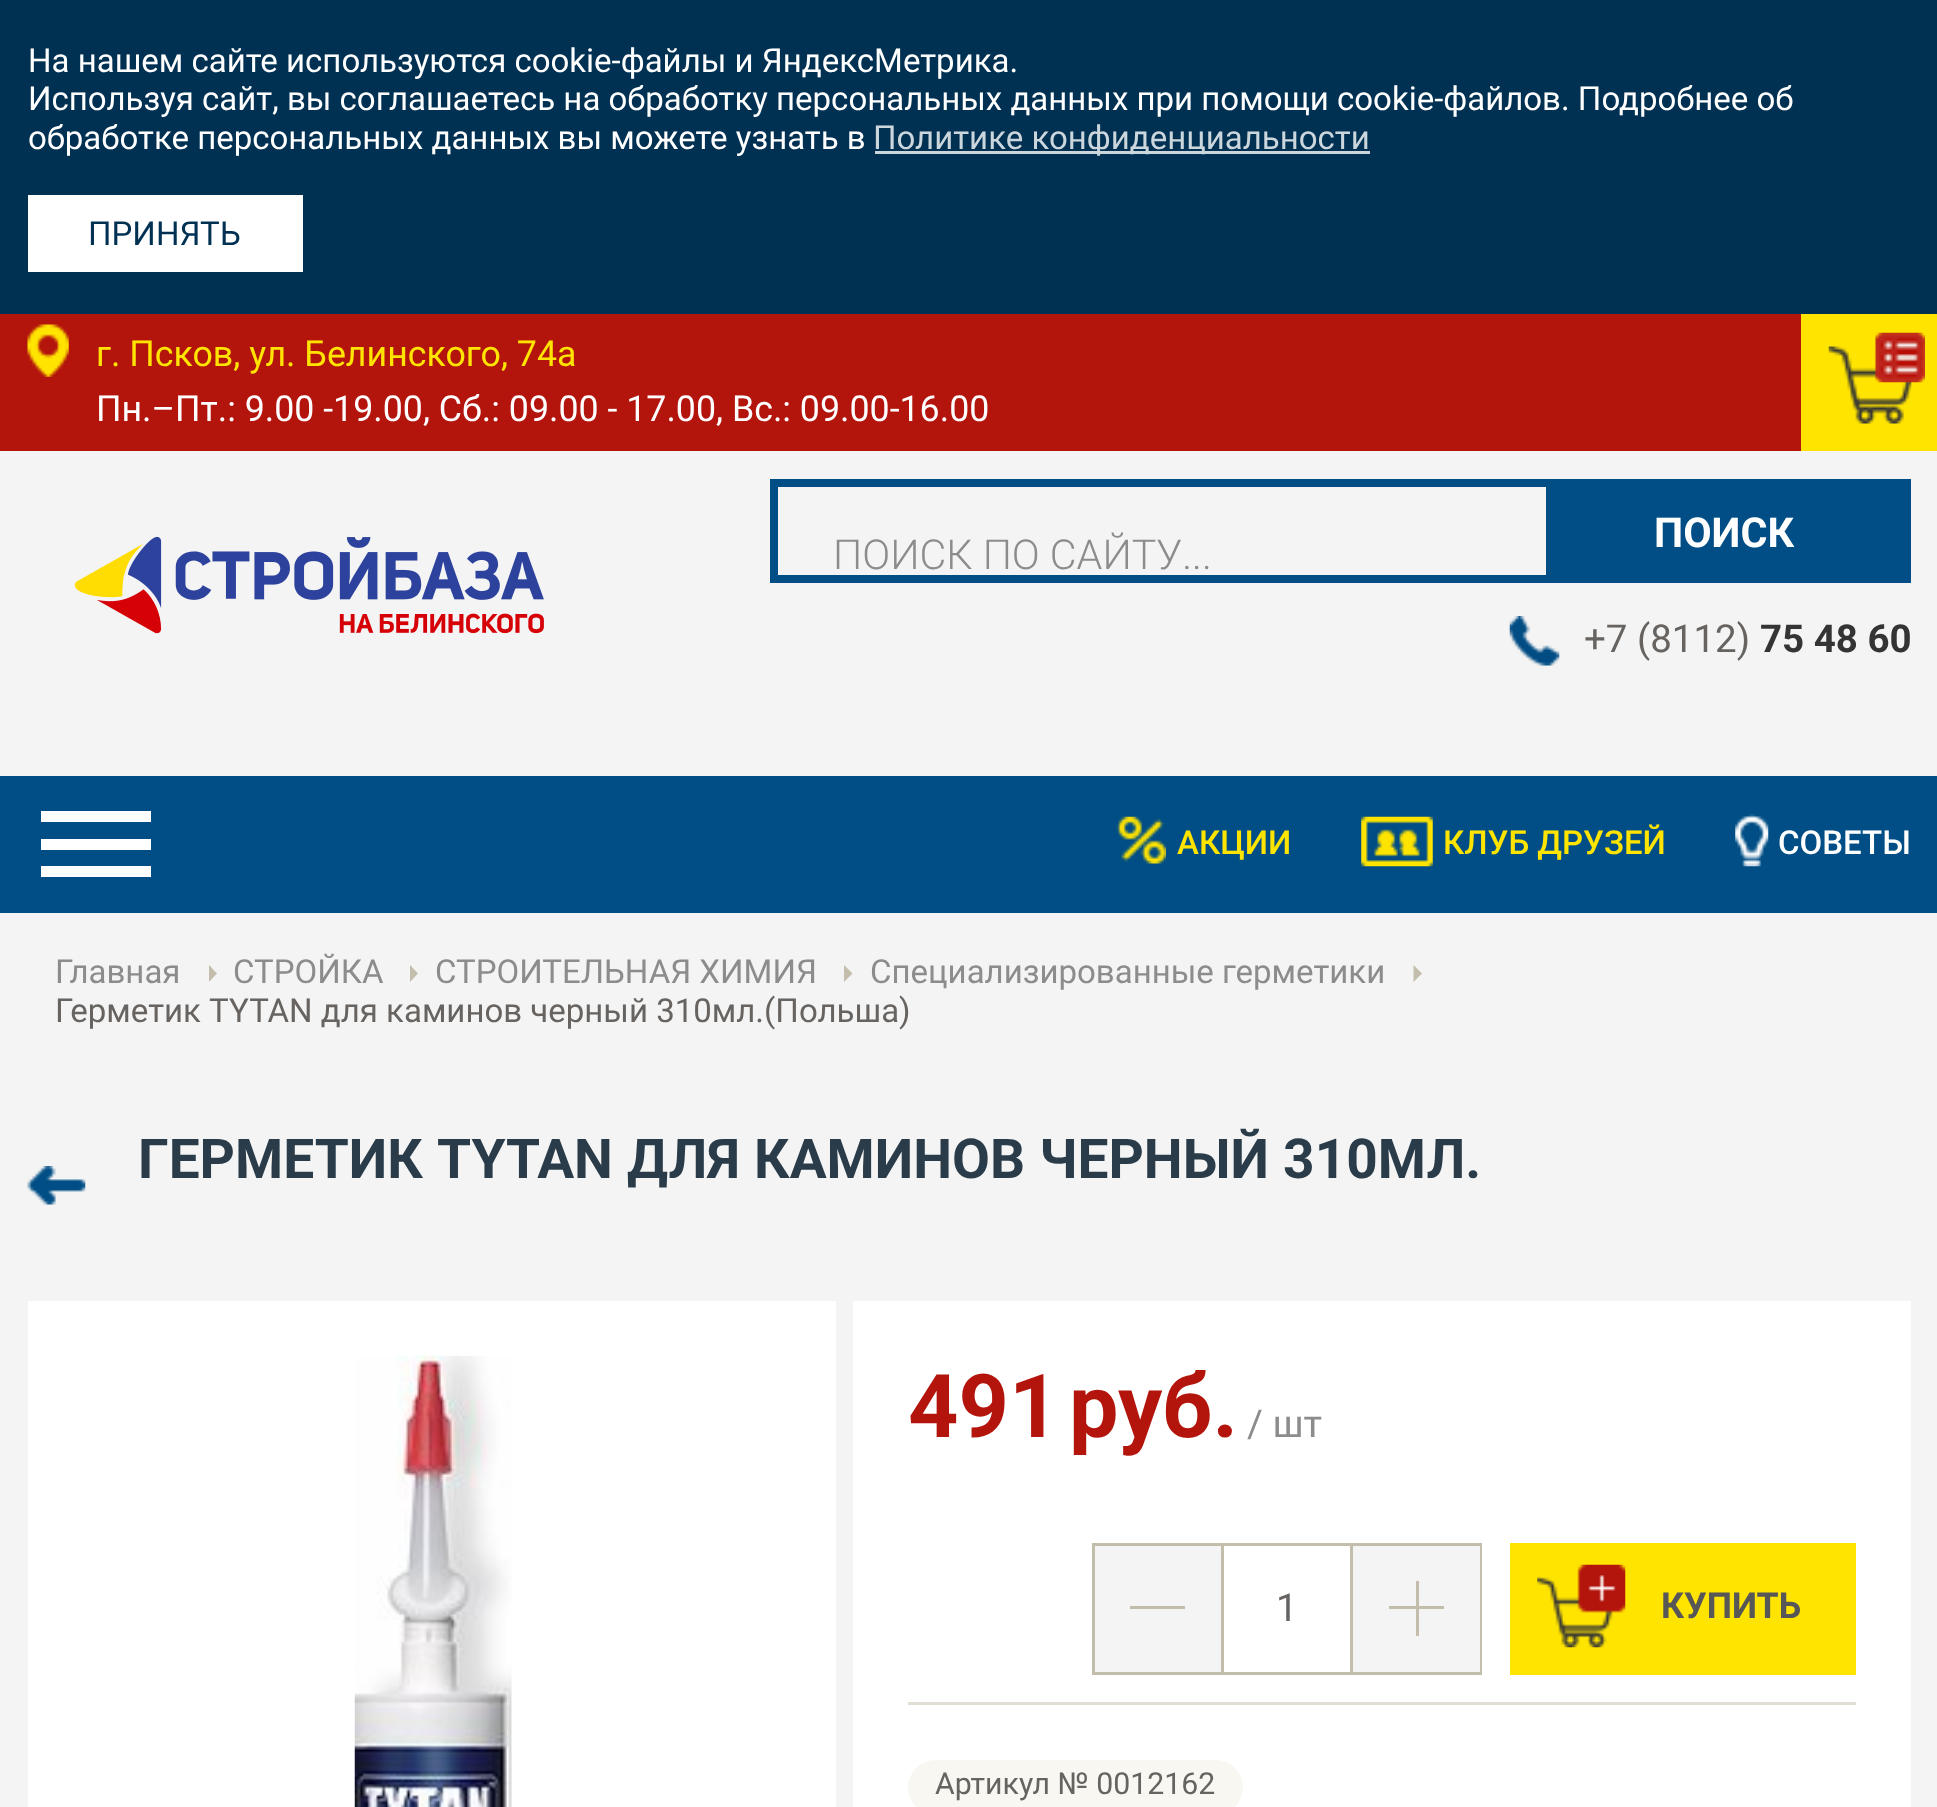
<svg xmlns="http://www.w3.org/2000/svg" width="1937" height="1807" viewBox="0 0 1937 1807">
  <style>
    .t1 { font: 33px Roboto; fill: #fff; }
    .t2 { font: 33px Roboto; fill: #ccd6dd; }
    .t3 { font: 33px Roboto; fill: #003052; }
    .t4 { font: 35.75px Roboto; fill: #ffe400; }
    .t5 { font: 35.75px Roboto; fill: #fff; }
    .t6 { font: 300 41.25px Roboto; fill: #8c8c8c; }
    .t7 { font: bold 41.25px Roboto; fill: #fff; }
    .t8 { font: 38.5px Roboto; fill: #666360; }
    .t9 { font: bold 38.5px Roboto; fill: #343434; }
    .t10 { font: 500 33px Roboto; fill: #ffe400; }
    .t11 { font: 500 33px Roboto; fill: #fff; }
    .t12 { font: 33px Roboto; fill: #8c8c8c; }
    .t13 { font: 33px Roboto; fill: #666360; }
    .t14 { font: bold 55px Roboto; fill: #2a3c49; }
    .t15 { font: bold 88px Roboto; fill: #b3150d; }
    .t16 { font: 38.5px Roboto; fill: #8c8c8c; }
    .t17 { font: bold 35.75px Roboto; fill: #575757; }
    .t18 { font: 30.25px Roboto; fill: #666360; }
  </style>
  <rect width="100%" height="100%" fill="#f4f4f4"/>
  <rect x="0" y="0" width="1937" height="314" fill="#003052"/>
  <text x="28" y="72" class="t1">На нашем сайте используются cookie-файлы и ЯндексМетрика.</text>
  <text x="28" y="110" class="t1">Используя сайт, вы соглашаетесь на обработку персональных данных при помощи cookie-файлов. Подробнее об</text>
  <text x="28" y="149" class="t1">обработке персональных данных вы можете узнать в</text>
  <rect x="875" y="151" width="495" height="3" fill="#ccd6dc"/>
  <text x="873" y="149" class="t2">Политике конфиденциальности</text>
  <rect x="28" y="195" width="275" height="77" fill="#fff"/>
  <text x="88" y="245" class="t3">ПРИНЯТЬ</text>
  <rect x="0" y="314" width="1801" height="137" fill="#b3150d"/>
  <image x="27" y="324" width="42" height="53" href="images/1.png"/>
  <text x="96" y="366" class="t4">г. Псков, ул. Белинского, 74а</text>
  <text x="96" y="421" class="t5">Пн.–Пт.: 9.00 -19.00, Сб.: 09.00 - 17.00, Вс.: 09.00-16.00</text>
  <rect x="1801" y="314" width="136" height="137" fill="#ffe400"/>
  <image x="1828" y="346" width="84" height="78" href="images/2.png"/>
  <image x="1875" y="332" width="50" height="51" href="images/3.png"/>
  <image x="74" y="536" width="470" height="98" href="images/4.png"/>
  <rect x="774" y="483" width="1133" height="96" fill="none" stroke="#004e85" stroke-width="8"/>
  <text x="833" y="569" class="t6">ПОИСК ПО САЙТУ...</text>
  <rect x="1546" y="487" width="357" height="88" fill="#004e85"/>
  <text x="1654" y="547" class="t7">ПОИСК</text>
  <image x="1509" y="616" width="51" height="50" href="images/5.png"/>
  <text x="1584" y="652" class="t8">+7 (8112)</text>
  <text x="1760" y="652" class="t9">75 48 60</text>
  <rect x="0" y="776" width="1937" height="137" fill="#004e85"/>
  <rect x="41" y="839" width="110" height="11" fill="#fff"/>
  <rect x="41" y="811" width="110" height="11" fill="#fff"/>
  <rect x="41" y="866" width="110" height="11" fill="#fff"/>
  <image x="1116" y="816" width="50" height="48" href="images/6.png"/>
  <text x="1177" y="854" class="t10">АКЦИИ</text>
  <image x="1361" y="816" width="72" height="51" href="images/7.png"/>
  <text x="1443" y="854" class="t10">КЛУБ ДРУЗЕЙ</text>
  <image x="1735" y="814" width="34" height="53" href="images/8.png"/>
  <text x="1778" y="854" class="t11">СОВЕТЫ</text>
  <text x="55" y="983" class="t12">Главная</text>
  <path d="M209 982V965L217 973.5Z" fill="#c3beac"/>
  <text x="233" y="983" class="t12">СТРОЙКА</text>
  <path d="M410 982V965L418 973.5Z" fill="#c3beac"/>
  <text x="435" y="983" class="t12">СТРОИТЕЛЬНАЯ ХИМИЯ</text>
  <path d="M844 982V965L852.5 973.5Z" fill="#c3beac"/>
  <text x="870" y="983" class="t12">Специализированные герметики</text>
  <path d="M1413.5 982V965L1422 973.5Z" fill="#c3beac"/>
  <text x="55" y="1022" class="t13">Герметик TYTAN для каминов черный 310мл.(Польша)</text>
  <image x="27" y="1166" width="59" height="39" href="images/9.png"/>
  <text x="138" y="1178" word-spacing="0.5" class="t14">ГЕРМЕТИК TYTAN ДЛЯ КАМИНОВ ЧЕРНЫЙ 310МЛ.</text>
  <rect x="28" y="1301" width="808" height="506" fill="#fff"/>
  <image x="354" y="1355" width="158" height="452" href="images/10.png"/>
  <rect x="853" y="1301" width="1058" height="506" fill="#fff"/>
  <text x="908" y="1437" class="t15">491</text>
  <text x="1069" y="1437" class="t15">руб.</text>
  <text x="1247" y="1437" class="t16">/ шт</text>
  <rect x="1093.5" y="1544.5" width="387" height="129" fill="none" stroke="#c3beac" stroke-width="3"/>
  <rect x="1095" y="1546" width="126" height="126" fill="#f4f4f4"/>
  <rect x="1130" y="1606" width="55" height="3" fill="#c3beac"/>
  <rect x="1350" y="1546" width="3" height="126" fill="#c3beac"/>
  <rect x="1221" y="1546" width="3" height="126" fill="#c3beac"/>
  <text x="1276" y="1621" class="t8">1</text>
  <rect x="1353" y="1546" width="127" height="126" fill="#f4f4f4"/>
  <rect x="1389" y="1606" width="55" height="3" fill="#c3beac"/>
  <rect x="1416" y="1581" width="3" height="55" fill="#c3beac"/>
  <rect x="1510" y="1543" width="346" height="132" fill="#ffe400"/>
  <image x="1537" y="1564" width="89" height="84" href="images/11.png"/>
  <text x="1661" y="1618" class="t17">КУПИТЬ</text>
  <rect x="908" y="1702" width="948" height="3" fill="#e1ded5"/>
  <rect x="908" y="1760" width="335" height="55" rx="27.5" fill="#f8f7f1"/>
  <text x="935" y="1794" class="t18">Артикул № 0012162</text>
</svg>
